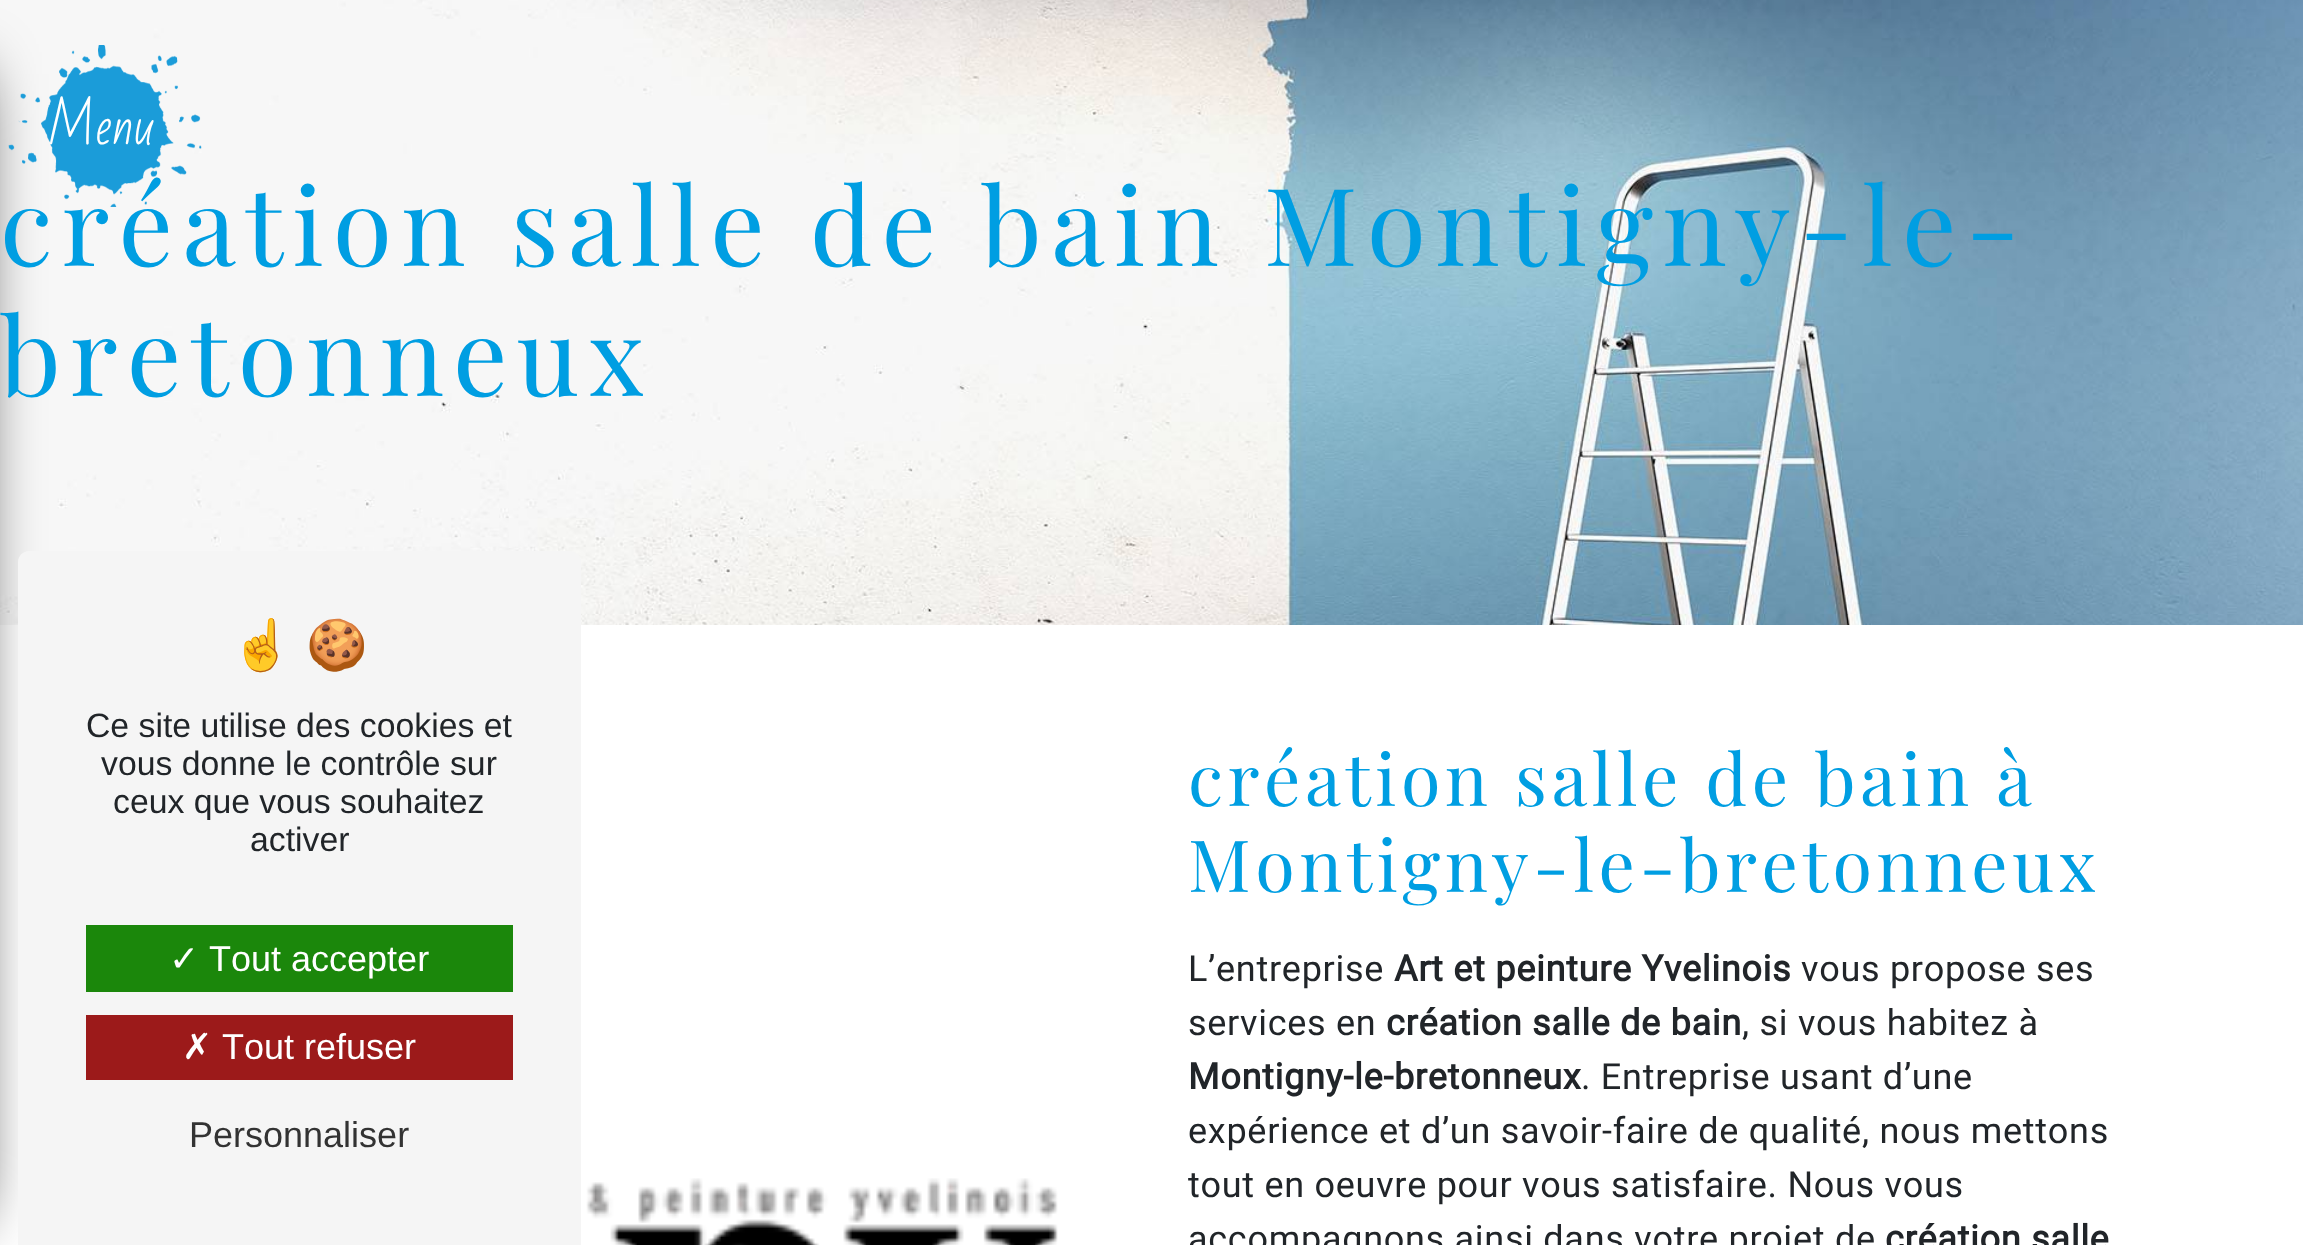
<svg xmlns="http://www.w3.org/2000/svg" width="2303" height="1245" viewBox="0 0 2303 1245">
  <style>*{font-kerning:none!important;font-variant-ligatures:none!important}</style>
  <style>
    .t1 { font: 108px Playfair Display; letter-spacing: 9px; fill: #009ee2; }
    .t2 { font: 49.5px Bad Script; fill: #fff; }
    .t3 { font: 72px Playfair Display; letter-spacing: 4.5px; fill: #009ee2; }
    .t4 { font: 36px Roboto; letter-spacing: 0.72px; fill: #212529; }
    .t5 { font: bold 36px Roboto; letter-spacing: 0.72px; fill: #212529; }
    .t6 { font: 49.5px Noto Color Emoji; fill: #212529; }
    .t7 { font: 33.75px Liberation Sans; fill: #212529; }
    .t8 { font: 36px DejaVu Sans; fill: #fff; }
    .t9 { font: 36px Liberation Sans; fill: #fff; }
    .t10 { font: 36px Liberation Sans; fill: #333; }
  </style>
  <rect width="100%" height="100%" fill="#fff"/>
  <image x="0" y="0" width="2303" height="625" href="images/2.png"/>
  <rect x="-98" y="74" width="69" height="1143" fill="#000" filter="blur(32.5px)"/>
  <text x="0" y="266" class="t1">création salle de bain Montigny-le-</text>
  <image x="8" y="45" width="194" height="162" href="images/1.png"/>
  <text x="47" y="144" class="t2">Menu</text>
  <text x="0" y="396" class="t1">bretonneux</text>
  <image x="586" y="1178" width="472" height="67" href="images/3.png"/>
  <text x="1188" y="806" class="t3">création salle de bain à</text>
  <text x="1188" y="892" class="t3">Montigny-le-bretonneux</text>
  <text x="1188" y="981" class="t4">L’entreprise</text>
  <text x="1394" y="981" class="t5">Art et peinture Yvelinois</text>
  <text x="1801" y="981" class="t4">vous propose ses</text>
  <text x="1188" y="1035" class="t4">services en</text>
  <text x="1386" y="1035" class="t5">création salle de bain</text>
  <text x="1742" y="1035" class="t4">, si vous habitez à</text>
  <text x="1188" y="1089" class="t5">Montigny-le-bretonneux</text>
  <text x="1581" y="1089" class="t4">. Entreprise usant d’une</text>
  <text x="1188" y="1143" class="t4">expérience et d’un savoir-faire de qualité, nous mettons</text>
  <text x="1188" y="1197" class="t4">tout en oeuvre pour vous satisfaire. Nous vous</text>
  <text x="1188" y="1251" class="t4">accompagnons ainsi dans votre projet de</text>
  <text x="1885" y="1251" class="t5">création salle</text>
  <path d="M29 551H570C576 551 581 556 581 562V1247H18V562C18 556 23 551 29 551Z" fill="#f5f5f5"/>
  <text x="231" y="662" class="t6">☝</text>
  <text x="306" y="662" class="t6">🍪</text>
  <text x="86" y="737" class="t7">Ce site utilise des cookies et</text>
  <text x="101" y="775" class="t7">vous donne le contrôle sur</text>
  <text x="113" y="813" class="t7">ceux que vous souhaitez</text>
  <text x="250" y="851" class="t7">activer</text>
  <rect x="86" y="925" width="427" height="67" fill="#1b870b"/>
  <text x="169" y="971" class="t8">✓</text>
  <text x="209" y="971" class="t9">Tout accepter</text>
  <rect x="86" y="1015" width="427" height="65" fill="#9c1a1a"/>
  <text x="182" y="1059" class="t8">✗</text>
  <text x="222" y="1059" class="t9">Tout refuser</text>
  <text x="189" y="1147" class="t10">Personnaliser</text>
</svg>
